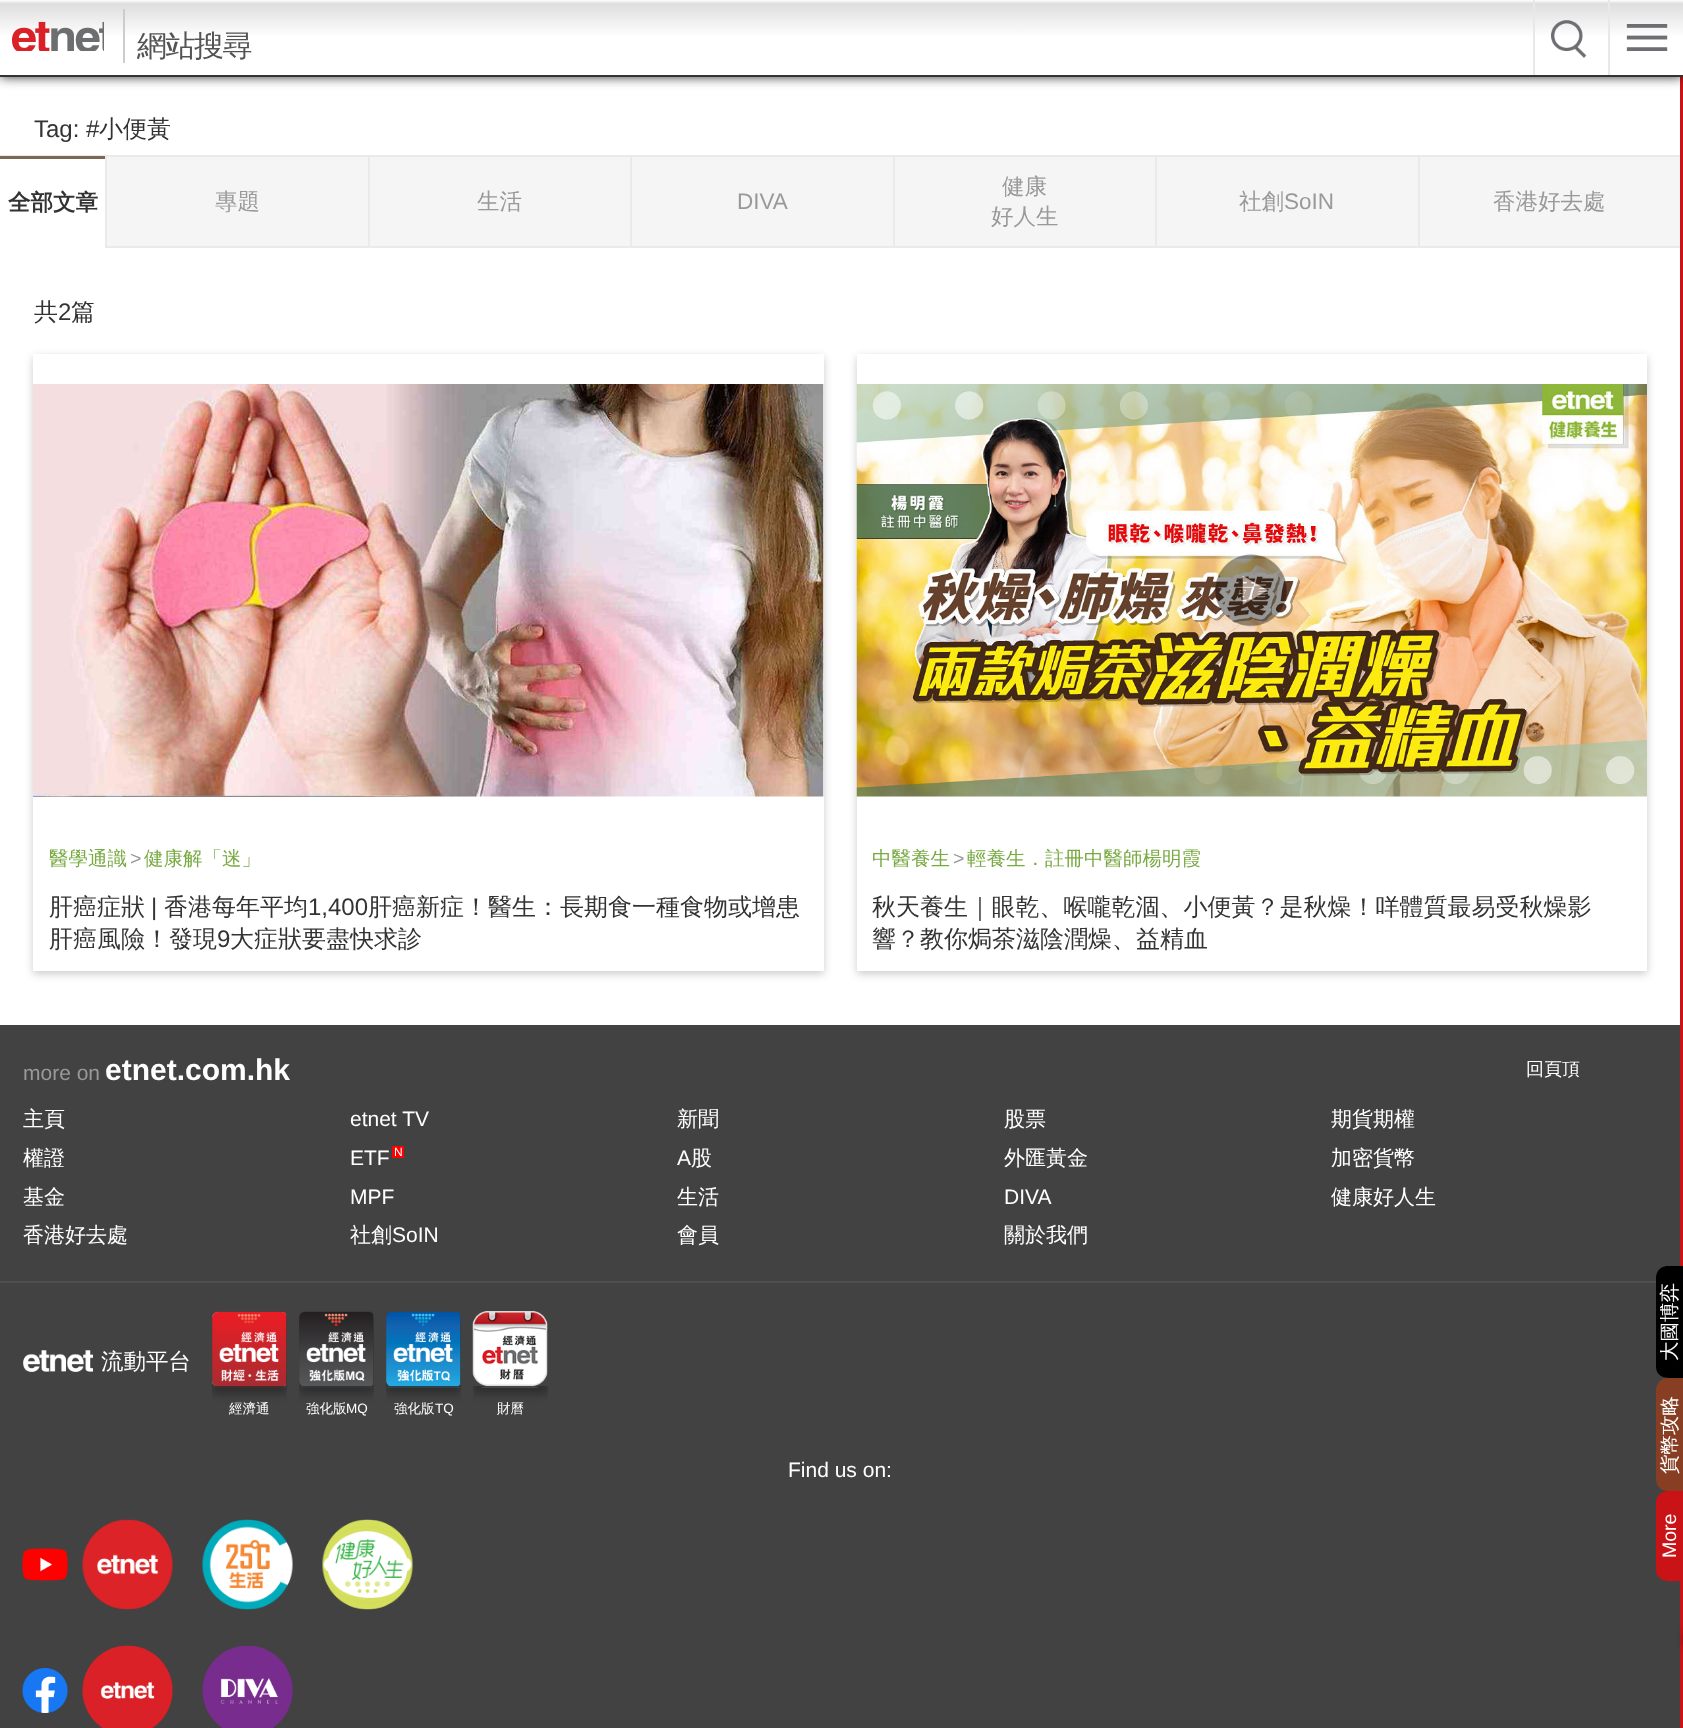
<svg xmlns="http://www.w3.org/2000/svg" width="1683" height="1728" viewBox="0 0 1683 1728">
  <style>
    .t1 { font: 500 30px WenQuanYi Zen Hei; letter-spacing: -1.5px; fill: #545454; }
    .t2 { font: 24px Liberation Sans; fill: #333; }
    .t3 { font: 500 24px WenQuanYi Zen Hei; fill: #333; }
    .t4 { font: bold 22.5px WenQuanYi Zen Hei; fill: #333; }
    .t5 { font: 500 22.5px WenQuanYi Zen Hei; fill: #999; }
    .t6 { font: 22.5px Liberation Sans; fill: #999; }
    .t7 { font: 500 19.5px WenQuanYi Zen Hei; fill: #78aa42; }
    .t8 { font: 19.5px Liberation Sans; fill: #999; }
    .t9 { font: 21px Liberation Sans; fill: #999; }
    .t10 { font: bold 30px Liberation Sans; fill: #fff; }
    .t11 { font: 500 18px WenQuanYi Zen Hei; fill: #fff; }
    .t12 { font: 500 21px WenQuanYi Zen Hei; fill: #fff; }
    .t13 { font: 21px Liberation Sans; fill: #fff; }
    .t14 { font: 12px Liberation Sans; fill: #fff; }
    .t15 { font: 500 22.5px WenQuanYi Zen Hei; fill: #fff; }
    .t16 { font: 500 13.5px WenQuanYi Zen Hei; fill: #fff; }
    .t17 { font: 13.5px Liberation Sans; fill: #fff; }
    .t18 { font: 500 19.5px WenQuanYi Zen Hei; fill: #fff; }
    .t19 { font: 19.5px Liberation Sans; fill: #fff; }
  </style>
  <defs>
    <linearGradient id="g1" gradientUnits="userSpaceOnUse" x1="842" y1="0" x2="842" y2="75"><stop offset="0" stop-color="#fff"/><stop offset="0.05" stop-color="#dedede"/><stop offset="0.5" stop-color="#fff"/></linearGradient>
    <clipPath id="clip1"><rect x="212" y="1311" width="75" height="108"/></clipPath>
    <clipPath id="clip2"><rect x="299" y="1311" width="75" height="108"/></clipPath>
    <clipPath id="clip3"><rect x="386" y="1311" width="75" height="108"/></clipPath>
    <clipPath id="clip4"><rect x="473" y="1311" width="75" height="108"/></clipPath>
    <clipPath id="clip5"><path d="M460 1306H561V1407H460ZM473 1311H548V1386H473Z" clip-rule="evenodd"/></clipPath>
  </defs>
  <rect width="100%" height="100%" fill="#fff"/>
  <rect x="1680" y="77" width="3" height="1651" fill="#c91316"/>
  <rect x="0" y="0" width="1683" height="77" fill="#000000cc" filter="blur(6px)"/>
  <rect x="0" y="0" width="1683" height="75" fill="url(#g1)"/>
  <rect x="0" y="75" width="1683" height="2" fill="#333"/>
  <image x="11" y="21" width="93" height="30" href="images/1.png"/>
  <rect x="123" y="9" width="2" height="54" fill="#ccc"/>
  <text x="137" y="56" class="t1">網站搜尋</text>
  <image x="1551" y="20" width="36" height="38" href="images/2.png"/>
  <rect x="1533" y="0" width="2" height="75" fill="#e8e8e8"/>
  <image x="1626" y="24" width="42" height="27" href="images/3.png"/>
  <rect x="1608" y="0" width="2" height="75" fill="#e8e8e8"/>
  <text x="34" y="137" class="t2">Tag: #</text>
  <text x="99" y="137" class="t3">小便黃</text>
  <rect x="107" y="157" width="1573" height="89" fill="#f5f5f5"/>
  <rect x="0" y="155" width="1680" height="2" fill="#eaeaea"/>
  <rect x="0" y="156" width="105" height="3" fill="#7a6855"/>
  <text x="8" y="210" class="t4">全部文章</text>
  <rect x="105" y="246" width="1575" height="2" fill="#eaeaea"/>
  <rect x="105" y="156" width="2" height="92" fill="#eaeaea"/>
  <text x="215" y="209" class="t5">專題</text>
  <rect x="368" y="156" width="2" height="92" fill="#eaeaea"/>
  <text x="477" y="209" class="t5">生活</text>
  <rect x="630" y="156" width="2" height="92" fill="#eaeaea"/>
  <text x="737" y="209" class="t6">DIVA</text>
  <rect x="893" y="156" width="2" height="92" fill="#eaeaea"/>
  <text x="1002" y="194" class="t5">健康</text>
  <text x="991" y="224" class="t5">好人生</text>
  <rect x="1155" y="156" width="2" height="92" fill="#eaeaea"/>
  <text x="1239" y="209" class="t5">社創</text>
  <text x="1284" y="209" class="t6">SoIN</text>
  <rect x="1418" y="156" width="2" height="92" fill="#eaeaea"/>
  <text x="1493" y="209" class="t5">香港好去處</text>
  <text x="34" y="320" class="t3">共</text>
  <text x="58" y="320" class="t2">2</text>
  <text x="71" y="320" class="t3">篇</text>
  <rect x="33" y="357" width="791" height="617" fill="#00000033" filter="blur(4.5px)"/>
  <rect x="33" y="354" width="791" height="617" fill="#fff"/>
  <image x="33" y="384" width="791" height="413" href="images/4.png"/>
  <text x="49" y="865" class="t7">醫學通識</text>
  <text x="130" y="865" class="t8">&gt;</text>
  <text x="144" y="865" class="t7">健康解「迷」</text>
  <text x="49" y="915" class="t3">肝癌症狀</text>
  <text x="151" y="915" class="t2">|</text>
  <text x="164" y="915" class="t3">香港每年平均</text>
  <text x="308" y="915" class="t2">1,400</text>
  <text x="368" y="915" class="t3">肝癌新症！醫生：長期食一種食物或增患</text>
  <text x="49" y="947" class="t3">肝癌風險！發現</text>
  <text x="217" y="947" class="t2">9</text>
  <text x="230" y="947" class="t3">大症狀要盡快求診</text>
  <rect x="857" y="357" width="790" height="617" fill="#00000033" filter="blur(4.5px)"/>
  <rect x="857" y="354" width="790" height="617" fill="#fff"/>
  <image x="856" y="384" width="791" height="413" href="images/5.png"/>
  <image x="1215" y="554" width="72" height="73" href="images/6.png"/>
  <text x="872" y="865" class="t7">中醫養生</text>
  <text x="953" y="865" class="t8">&gt;</text>
  <text x="967" y="865" class="t7">輕養生．註冊中醫師楊明霞</text>
  <text x="872" y="915" class="t3">秋天養生｜眼乾、喉嚨乾涸、小便黃？是秋燥！咩體質最易受秋燥影</text>
  <text x="872" y="947" class="t3">響？教你焗茶滋陰潤燥、益精血</text>
  <rect x="0" y="1025" width="1680" height="703" fill="#424242"/>
  <text x="23" y="1080" class="t9">more on</text>
  <text x="105" y="1080" class="t10">etnet.com.hk</text>
  <text x="1526" y="1075" class="t11">回頁頂</text>
  <text x="23" y="1126" class="t12">主頁</text>
  <text x="350" y="1126" class="t13">etnet TV</text>
  <text x="677" y="1126" class="t12">新聞</text>
  <text x="1004" y="1126" class="t12">股票</text>
  <text x="1331" y="1126" class="t12">期貨期權</text>
  <text x="23" y="1165" class="t12">權證</text>
  <text x="350" y="1165" class="t13">ETF</text>
  <rect x="392" y="1146" width="12" height="12" fill="#f00"/>
  <text x="394" y="1156" class="t14">N</text>
  <text x="677" y="1165" class="t13">A</text>
  <text x="691" y="1165" class="t12">股</text>
  <text x="1004" y="1165" class="t12">外匯黃金</text>
  <text x="1331" y="1165" class="t12">加密貨幣</text>
  <text x="23" y="1204" class="t12">基金</text>
  <text x="350" y="1204" class="t13">MPF</text>
  <text x="677" y="1204" class="t12">生活</text>
  <text x="1004" y="1204" class="t13">DIVA</text>
  <text x="1331" y="1204" class="t12">健康好人生</text>
  <text x="23" y="1242" class="t12">香港好去處</text>
  <text x="350" y="1242" class="t12">社創</text>
  <text x="392" y="1242" class="t13">SoIN</text>
  <text x="677" y="1242" class="t12">會員</text>
  <text x="1004" y="1242" class="t12">關於我們</text>
  <rect x="0" y="1281" width="1656" height="2" fill="#4f4f4f"/>
  <image x="23" y="1350" width="70" height="22" href="images/7.png"/>
  <text x="101" y="1369" class="t15">流動平台</text>
  <g clip-path="url(#clip1)">
    <rect x="212" y="1319" width="75" height="75" fill="#0000004d" filter="blur(4px)"/>
  </g>
  <image x="212" y="1311" width="75" height="77" href="images/8.png"/>
  <text x="229" y="1413" class="t16">經濟通</text>
  <g clip-path="url(#clip2)">
    <rect x="299" y="1319" width="75" height="75" fill="#0000004d" filter="blur(4px)"/>
  </g>
  <image x="299" y="1311" width="75" height="77" href="images/9.png"/>
  <text x="306" y="1413" class="t16">強化版</text>
  <text x="346" y="1413" class="t17">MQ</text>
  <g clip-path="url(#clip3)">
    <rect x="386" y="1319" width="75" height="75" fill="#0000004d" filter="blur(4px)"/>
  </g>
  <image x="386" y="1311" width="75" height="77" href="images/10.png"/>
  <text x="394" y="1413" class="t16">強化版</text>
  <text x="435" y="1413" class="t17">TQ</text>
  <g clip-path="url(#clip4)">
    <g clip-path="url(#clip5)">
      <rect x="473" y="1319" width="75" height="75" fill="#0000004d" filter="blur(4px)"/>
    </g>
  </g>
  <image x="472" y="1311" width="76" height="77" href="images/11.png"/>
  <text x="497" y="1413" class="t16">財曆</text>
  <text x="788" y="1477" class="t13">Find us on:</text>
  <image x="22" y="1548" width="46" height="33" href="images/12.png"/>
  <image x="82" y="1519" width="91" height="91" href="images/13.png"/>
  <image x="202" y="1519" width="91" height="91" href="images/14.png"/>
  <image x="322" y="1519" width="91" height="91" href="images/15.png"/>
  <image x="22" y="1668" width="46" height="45" href="images/16.png"/>
  <image x="82" y="1645" width="91" height="83" href="images/17.png"/>
  <image x="202" y="1645" width="91" height="83" href="images/18.png"/>
  <path d="M1656 1366V1278C1656 1271 1661 1266 1668 1266H1683V1378C1673 1378 1656 1381 1656 1366Z" fill="#000"/>
  <text x="1676" y="1361" transform="rotate(-90 1676 1361)" class="t18">大國博弈</text>
  <path d="M1656 1479V1390C1656 1384 1661 1378 1668 1378H1683V1491C1673 1491 1656 1494 1656 1479Z" fill="#873e23"/>
  <text x="1676" y="1474" transform="rotate(-90 1676 1474)" class="t18">貨幣攻略</text>
  <path d="M1656 1569V1503C1656 1496 1661 1491 1668 1491H1683V1581C1673 1581 1656 1584 1656 1569Z" fill="#c91316"/>
  <text x="1676" y="1558" transform="rotate(-90 1676 1558)" class="t19">More</text>
  <rect x="1683" y="1632" width="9" height="15" fill="#0000004d" filter="blur(3px)"/>
</svg>
